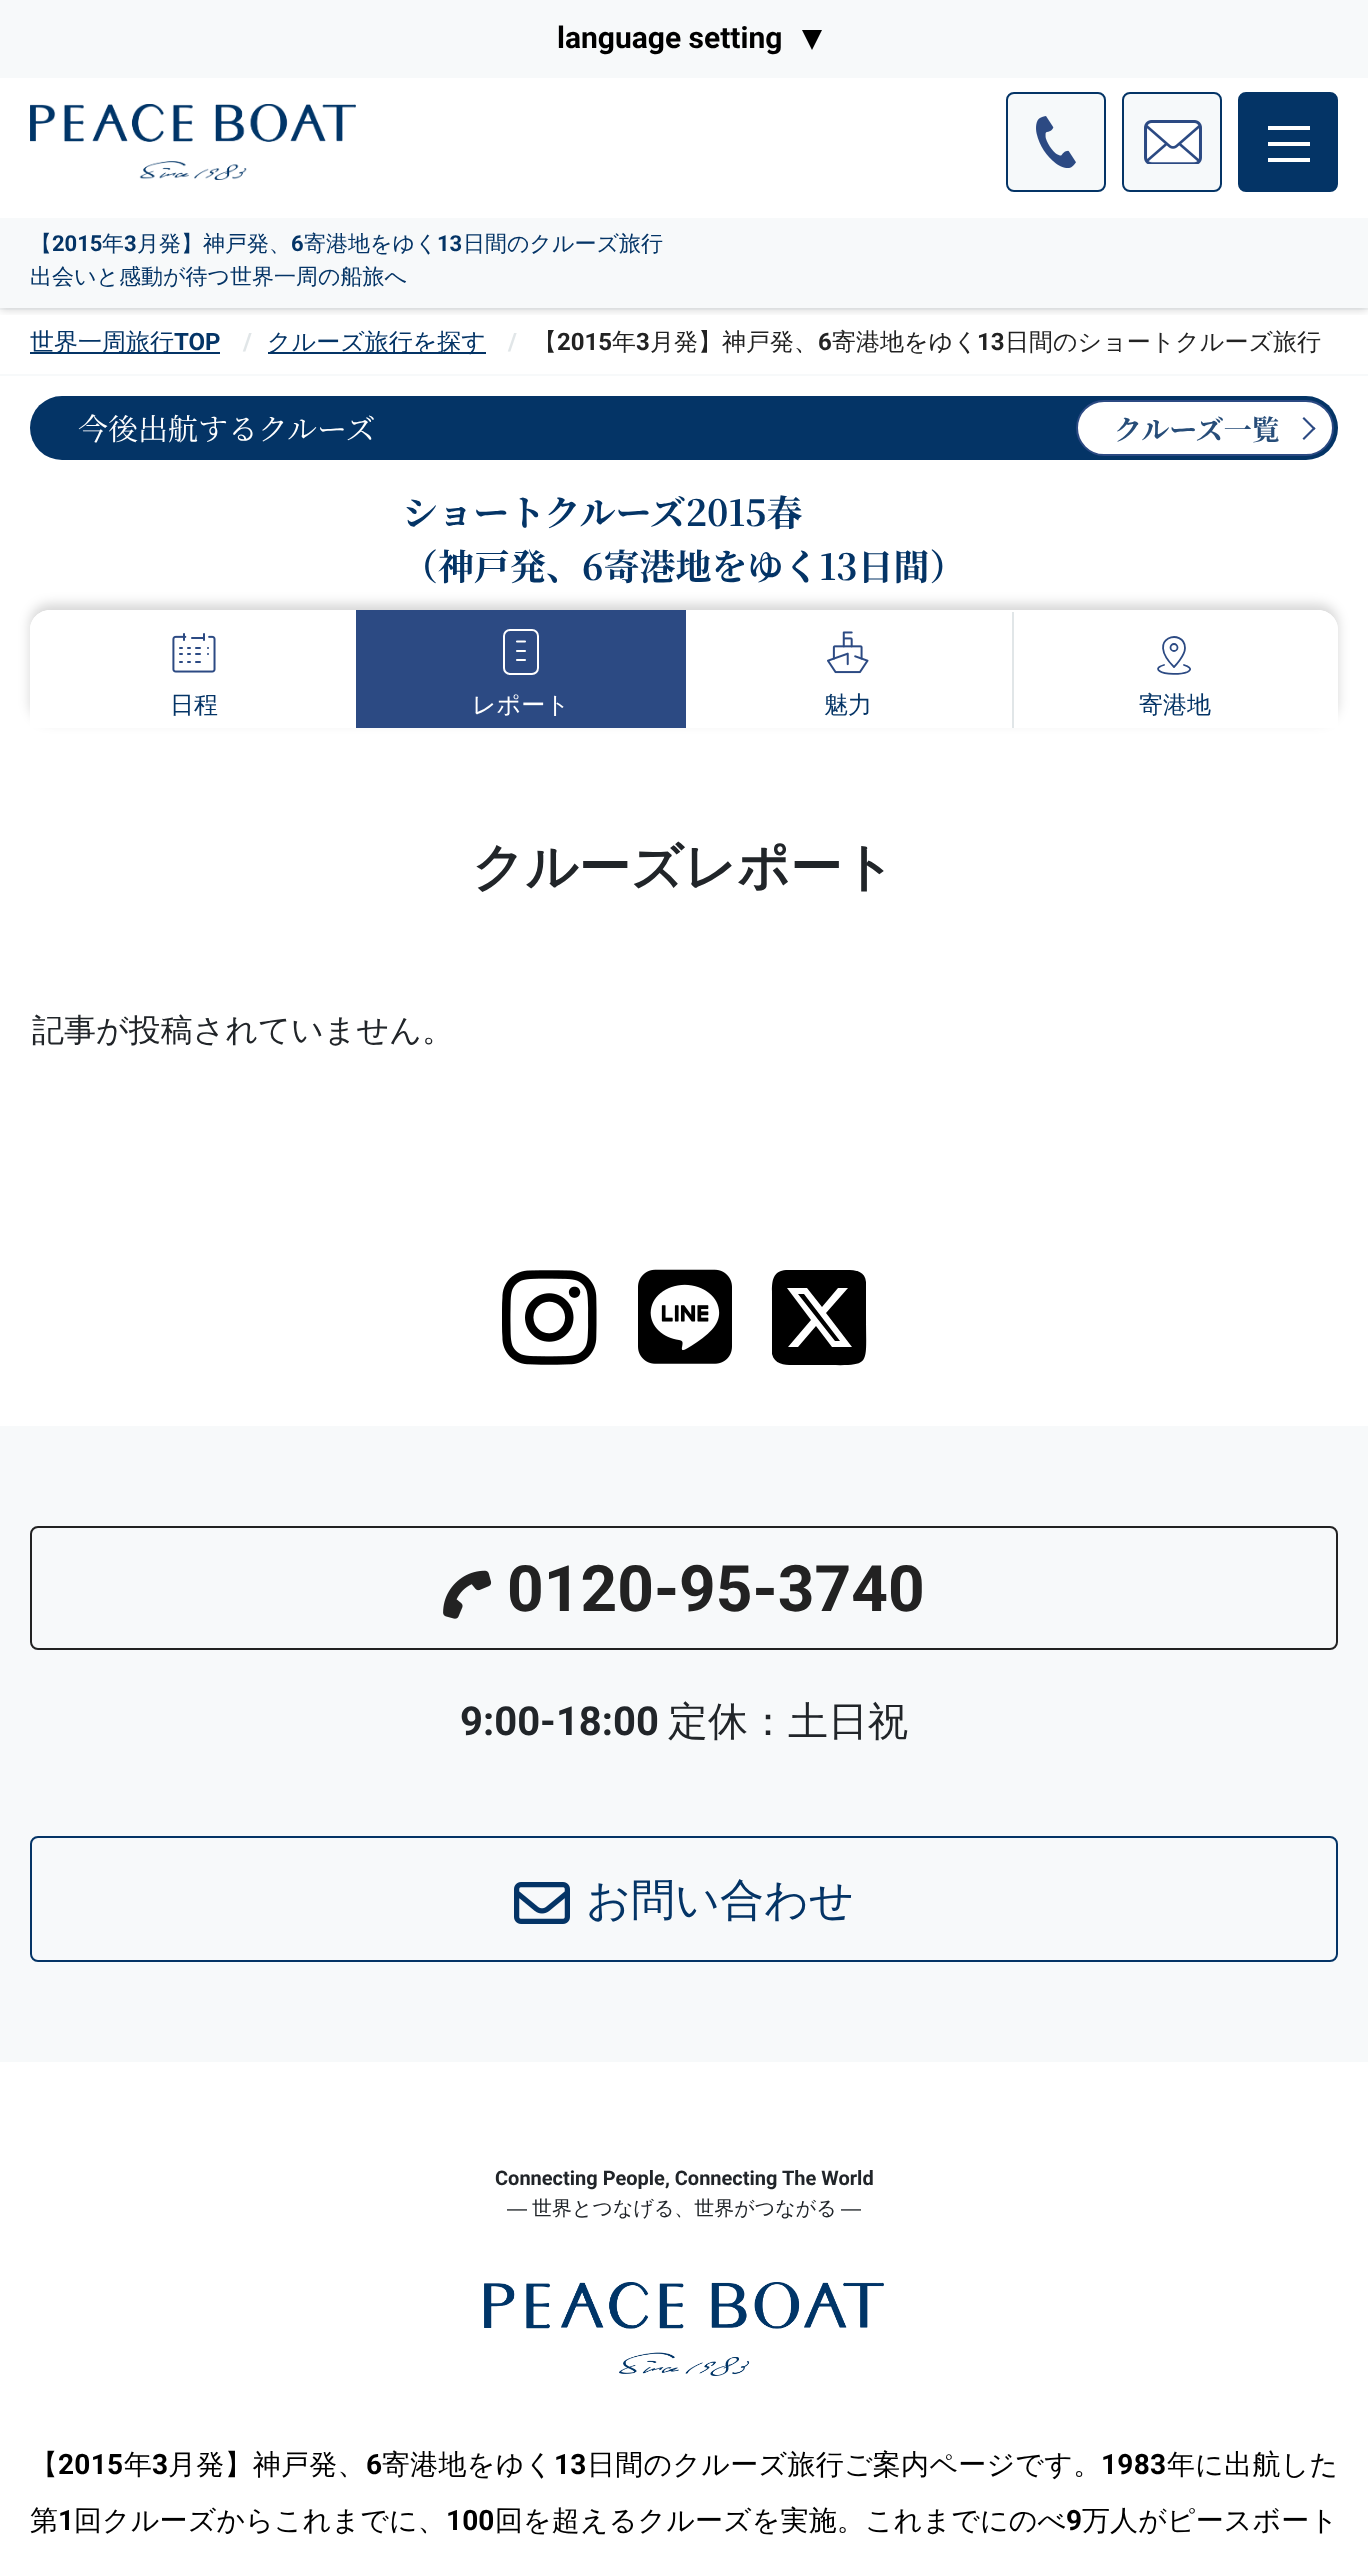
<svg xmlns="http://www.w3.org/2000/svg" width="1368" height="2568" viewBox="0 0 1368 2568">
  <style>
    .t1 { font: bold 30px Roboto; fill: #000; }
    .t2 { font: 500 22px WenQuanYi Zen Hei; fill: #043466; }
    .t3 { font: bold 22px Roboto; fill: #043466; }
    .t4 { font: 500 24px WenQuanYi Zen Hei; fill: #043466; }
    .t5 { font: bold 24px Roboto; fill: #043466; }
    .t6 { font: bold 24px Roboto; fill: #e1e6e8; }
    .t7 { font: 500 24px WenQuanYi Zen Hei; fill: #222; }
    .t8 { font: bold 24px Roboto; fill: #222; }
    .t9 { font: 30px Noto Serif JP; fill: #fff; }
    .t10 { font: bold 28px Noto Serif JP; fill: #274d79; }
    .t11 { font: bold 36px Noto Serif JP; fill: #043466; }
    .t12 { font: 500 24px WenQuanYi Zen Hei; fill: #fff; }
    .t13 { font: bold 52px WenQuanYi Zen Hei; fill: #212529; }
    .t14 { font: 500 32px WenQuanYi Zen Hei; fill: #212529; }
    .t15 { font: bold 64px Roboto; fill: #222; }
    .t16 { font: bold 40px Roboto; fill: #212529; }
    .t17 { font: 500 40px WenQuanYi Zen Hei; fill: #212529; }
    .t18 { font: 500 44px WenQuanYi Zen Hei; fill: #043466; }
    .t19 { font: bold 20px Roboto; fill: #212529; }
    .t20 { font: 20px Liberation Sans; fill: #212529; }
    .t21 { font: 500 20px WenQuanYi Zen Hei; fill: #212529; }
    .t22 { font: 500 28px WenQuanYi Zen Hei; letter-spacing: 0.25px; fill: #000; }
    .t23 { font: bold 28px Roboto; letter-spacing: 0.25px; fill: #000; }
    .t24 { font: 500 28px WenQuanYi Zen Hei; letter-spacing: 0.1px; fill: #000; }
    .t25 { font: bold 28px Roboto; letter-spacing: 0.1px; fill: #000; }
  </style>
  <defs>
    <clipPath id="clip1"><rect x="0" y="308" width="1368" height="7"/></clipPath>
    <clipPath id="clip2"><path d="M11 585H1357V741H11ZM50 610H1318C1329 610 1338 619 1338 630V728H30V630C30 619 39 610 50 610Z" clip-rule="evenodd"/></clipPath>
    <clipPath id="clip3"><path d="M50 610H1318C1329 610 1338 619 1338 630V728H30V630C30 619 39 610 50 610Z"/></clipPath>
  </defs>
  <rect width="100%" height="100%" fill="#fff"/>
  <rect x="0" y="308" width="1368" height="2" fill="#f7f9fa"/>
  <g clip-path="url(#clip1)">
    <rect x="0" y="2" width="1368" height="308" fill="#00000029" filter="blur(4px)"/>
  </g>
  <rect x="0" y="0" width="1368" height="78" fill="#f7f9fa"/>
  <text x="557" y="48" class="t1">language setting</text>
  <path d="M802 30H822L812 50Z" fill="#000"/>
  <image x="30" y="104" width="326" height="76" href="images/1.png"/>
  <rect x="1007" y="93" width="98" height="98" rx="7" fill="#f6f9fa" stroke="#043466" stroke-width="2"/>
  <image x="1036" y="116" width="40" height="52" href="images/2.png"/>
  <rect x="1123" y="93" width="98" height="98" rx="7" fill="#f6f9fa" stroke="#043466" stroke-width="2"/>
  <image x="1144" y="120" width="58" height="44" href="images/3.png"/>
  <rect x="1239" y="93" width="98" height="98" rx="7" fill="#043466" stroke="#043466" stroke-width="2"/>
  <rect x="1268" y="126" width="42" height="4" fill="#fff"/>
  <rect x="1268" y="142" width="42" height="4" fill="#fff"/>
  <rect x="1268" y="158" width="42" height="4" fill="#fff"/>
  <rect x="0" y="218" width="1368" height="90" fill="#f7f9fa"/>
  <text x="30" y="251" class="t2">【</text>
  <text x="52" y="251" class="t3">2015</text>
  <text x="102" y="251" class="t2">年</text>
  <text x="124" y="251" class="t3">3</text>
  <text x="137" y="251" class="t2">月発】神戸発、</text>
  <text x="291" y="251" class="t3">6</text>
  <text x="304" y="251" class="t2">寄港地をゆく</text>
  <text x="437" y="251" class="t3">13</text>
  <text x="463" y="251" class="t2">日間のクルーズ旅行</text>
  <text x="30" y="284" class="t2">出会いと感動が待つ世界一周の船旅へ</text>
  <rect x="0" y="374" width="1368" height="2" fill="#f7f9fa"/>
  <rect x="30" y="352" width="190" height="2" fill="#043466"/>
  <text x="30" y="350" class="t4">世界一周旅行</text>
  <text x="174" y="350" class="t5">TOP</text>
  <text x="243" y="350" class="t6">/</text>
  <rect x="268" y="352" width="218" height="2" fill="#043466"/>
  <text x="267" y="350" class="t4">クルーズ旅行を探す</text>
  <text x="508" y="350" class="t6">/</text>
  <text x="533" y="350" class="t7">【</text>
  <text x="557" y="350" class="t8">2015</text>
  <text x="612" y="350" class="t7">年</text>
  <text x="636" y="350" class="t8">3</text>
  <text x="650" y="350" class="t7">月発】神戸発、</text>
  <text x="818" y="350" class="t8">6</text>
  <text x="832" y="350" class="t7">寄港地をゆく</text>
  <text x="977" y="350" class="t8">13</text>
  <text x="1005" y="350" class="t7">日間のショートクルーズ旅行</text>
  <rect x="30" y="396" width="1308" height="64" rx="32" fill="#043466"/>
  <text x="78" y="440" class="t9">今後出航するクルーズ</text>
  <rect x="1077" y="401" width="256" height="54" rx="27" fill="#fff" stroke="#2c4a83" stroke-width="2"/>
  <text x="1114" y="440" class="t10">クルーズ一覧</text>
  <path d="M1302.5 418.5L1304 417L1315.5 428.5L1314 430Z" fill="#2c4a83"/>
  <path d="M1302.5 438.5L1314 427L1315.5 428.5L1304 440Z" fill="#2c4a83"/>
  <text x="402" y="526" class="t11">ショートクルーズ2015春</text>
  <text x="402" y="580" class="t11">（神戸発、6寄港地をゆく13日間）</text>
  <g clip-path="url(#clip2)">
    <rect x="30" y="604" width="1308" height="118" rx="20" fill="#00000029" filter="blur(6px)"/>
  </g>
  <g clip-path="url(#clip3)">
    <path d="M48 610H360V728H28V630C28 619 37 610 48 610Z" fill="#fff"/>
  </g>
  <image x="172" y="633" width="44" height="40" href="images/4.png"/>
  <text x="170" y="713" class="t4">日程</text>
  <rect x="356" y="610" width="330" height="118" fill="#2c4a83"/>
  <rect x="504" y="630" width="34" height="44" rx="6" fill="none" stroke="#fff" stroke-width="2"/>
  <path d="M517 641.5H525M517 651H525M517 660H525" fill="none" stroke="#fff" stroke-width="2.1" stroke-linecap="round" stroke-linejoin="round"/>
  <text x="472" y="713" class="t12">レポート</text>
  <image x="827" y="631" width="42" height="43" href="images/5.png"/>
  <text x="824" y="713" class="t4">魅力</text>
  <g clip-path="url(#clip3)">
    <path d="M1010 610H1320C1331 610 1340 619 1340 630V728H1010Z" fill="#fff"/>
  </g>
  <rect x="1012" y="612" width="2" height="116" fill="#e1e6e8"/>
  <path d="M1185 648C1185 656 1174 667 1174 667C1144 637 1185 627.5 1185 648Z" fill="none" stroke="#2c4a83" stroke-width="1.8" stroke-linecap="round" stroke-linejoin="round"/>
  <circle cx="1174" cy="647.5" r="3.5" fill="none" stroke="#2c4a83" stroke-width="1.8"/>
  <path d="M1184 665C1187 666 1194 668.5 1187.5 672C1181 674.5 1165 675 1159.5 671C1155 668 1162 665.5 1164 665" fill="none" stroke="#2c4a83" stroke-width="1.8" stroke-linecap="round" stroke-linejoin="round"/>
  <text x="1139" y="713" class="t4">寄港地</text>
  <text x="472" y="885" class="t13">クルーズレポート</text>
  <text x="32" y="1041" class="t14">記事が投稿されていません。</text>
  <image x="502" y="1270" width="95" height="95" href="images/6.png"/>
  <image x="638" y="1269" width="94" height="95" href="images/7.png"/>
  <path d="M786 1270C771 1271 772 1284 772 1295V1354C775 1366 787 1365 797 1365H819C872 1365 866 1370 866 1318V1282C865 1269 852 1270 842 1270ZM848 1288L826 1313L848 1288L826 1313L852 1347H832L816 1326L798 1347H788L811 1320L787 1288H807L822 1307L838 1288ZM840 1341L804 1294L840 1341L804 1294H798L835 1341Z" fill="#000"/>
  <rect x="0" y="1426" width="1368" height="636" fill="#f7f9fa"/>
  <rect x="31" y="1527" width="1306" height="122" rx="7" fill="none" stroke="#222" stroke-width="2"/>
  <image x="443" y="1570" width="49" height="49" href="images/8.png"/>
  <text x="507" y="1611" class="t15">0120-95-3740</text>
  <text x="460" y="1735" class="t16">9:00-18:00</text>
  <text x="668" y="1735" class="t17">定休：土日祝</text>
  <rect x="31" y="1837" width="1306" height="124" rx="7" fill="none" stroke="#043466" stroke-width="2"/>
  <image x="514" y="1882" width="56" height="42" href="images/9.png"/>
  <text x="586" y="1915" class="t18">お問い合わせ</text>
  <text x="495" y="2185" class="t19">Connecting People, Connecting The World</text>
  <text x="507" y="2215" class="t20">―</text>
  <text x="532" y="2215" class="t21">世界とつなげる、世界がつながる</text>
  <text x="841" y="2215" class="t20">―</text>
  <image x="484" y="2282" width="400" height="94" href="images/10.png"/>
  <text x="30" y="2474" class="t22">【</text>
  <text x="58" y="2474" class="t23">2015</text>
  <text x="124" y="2474" class="t22">年</text>
  <text x="152" y="2474" class="t23">3</text>
  <text x="168" y="2474" class="t22">月発】神戸発、</text>
  <text x="366" y="2474" class="t23">6</text>
  <text x="382" y="2474" class="t22">寄港地をゆく</text>
  <text x="554" y="2474" class="t23">13</text>
  <text x="587" y="2474" class="t22">日間のクルーズ旅行ご案内ページです。</text>
  <text x="1101" y="2474" class="t23">1983</text>
  <text x="1167" y="2474" class="t22">年に出航した</text>
  <text x="30" y="2530" class="t24">第</text>
  <text x="58" y="2530" class="t25">1</text>
  <text x="74" y="2530" class="t24">回クルーズからこれまでに、</text>
  <text x="446" y="2530" class="t25">100</text>
  <text x="495" y="2530" class="t24">回を超えるクルーズを実施。これまでにのべ</text>
  <text x="1066" y="2530" class="t25">9</text>
  <text x="1082" y="2530" class="t24">万人がピースボート</text>
</svg>
